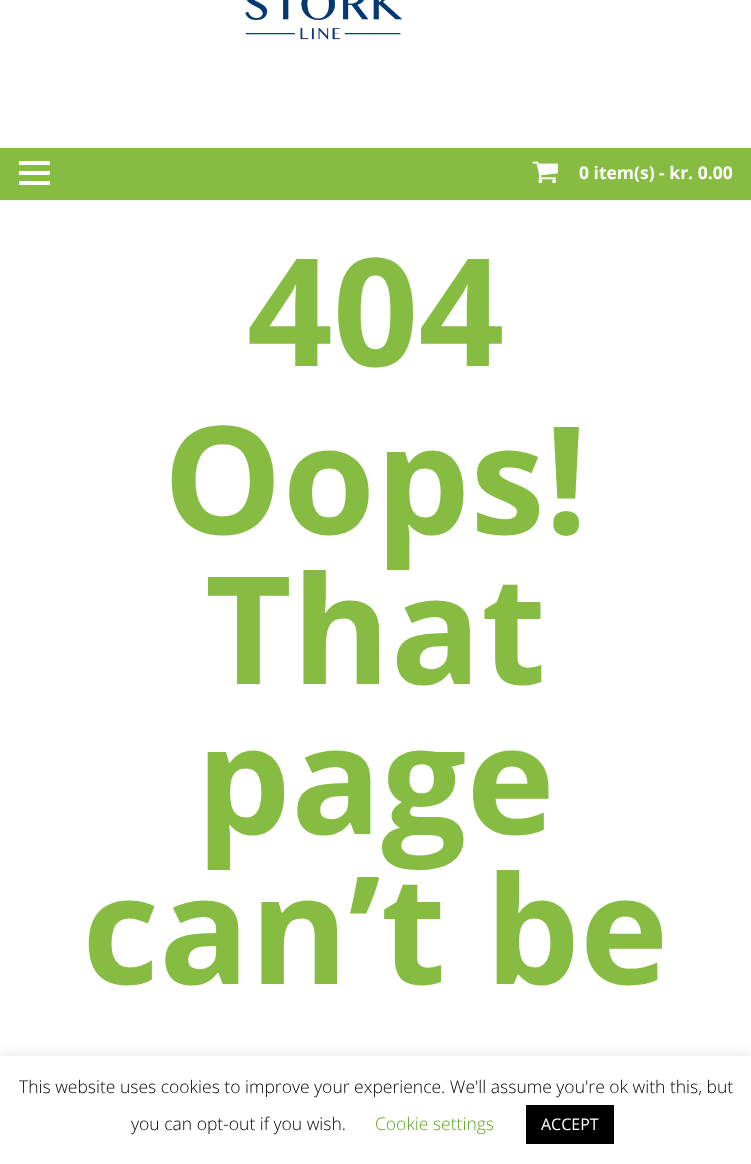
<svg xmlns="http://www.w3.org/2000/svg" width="751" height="1164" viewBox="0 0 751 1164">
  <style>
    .t1 { font: bold 17.5px Open Sans; fill: #fff; }
    .t2 { font: bold 150px Open Sans; fill: #86bc42; }
    .t3 { font: 300 17.5px Open Sans; fill: #000; }
    .t4 { font: 300 17.5px Open Sans; fill: #62a329; }
    .t5 { font: 16px Open Sans; fill: #fff; }
  </style>
  <rect width="100%" height="100%" fill="#fff"/>
  <image x="245" y="0" width="157" height="40" href="images/1.png"/>
  <path d="M0 147H751" fill="none" stroke="#ececec" stroke-width="1.2" stroke-dasharray="1.25 1.25"/>
  <path d="M0 200.5H751" fill="none" stroke="#ececec" stroke-width="1.2" stroke-dasharray="1.25 1.25"/>
  <rect x="0" y="148" width="751" height="52" fill="#86bc42"/>
  <rect x="19" y="161" width="31" height="4" fill="#fff"/>
  <rect x="19" y="171" width="31" height="4" fill="#fff"/>
  <rect x="19" y="181" width="31" height="4" fill="#fff"/>
  <image x="532" y="161" width="27" height="23" href="images/2.png"/>
  <text x="579" y="179" class="t1">0 item(s) - kr. 0.00</text>
  <text x="247" y="366" class="t2">404</text>
  <text x="163" y="534" class="t2">Oops!</text>
  <text x="205" y="684" class="t2">That</text>
  <text x="196" y="834" class="t2">page</text>
  <text x="82" y="984" class="t2">can’t be</text>
  <rect x="0" y="1055" width="751" height="109" fill="#acabab4d" filter="blur(6px)"/>
  <rect x="0" y="1056" width="751" height="108" fill="#fff"/>
  <text x="19" y="1093" class="t3">This website uses cookies to improve your experience. We'll assume you're ok with this, but</text>
  <text x="131" y="1130" class="t3">you can opt-out if you wish.</text>
  <text x="375" y="1130" class="t4">Cookie settings</text>
  <rect x="526" y="1105" width="88" height="39" fill="#000"/>
  <text x="541" y="1130" class="t5">ACCEPT</text>
</svg>
